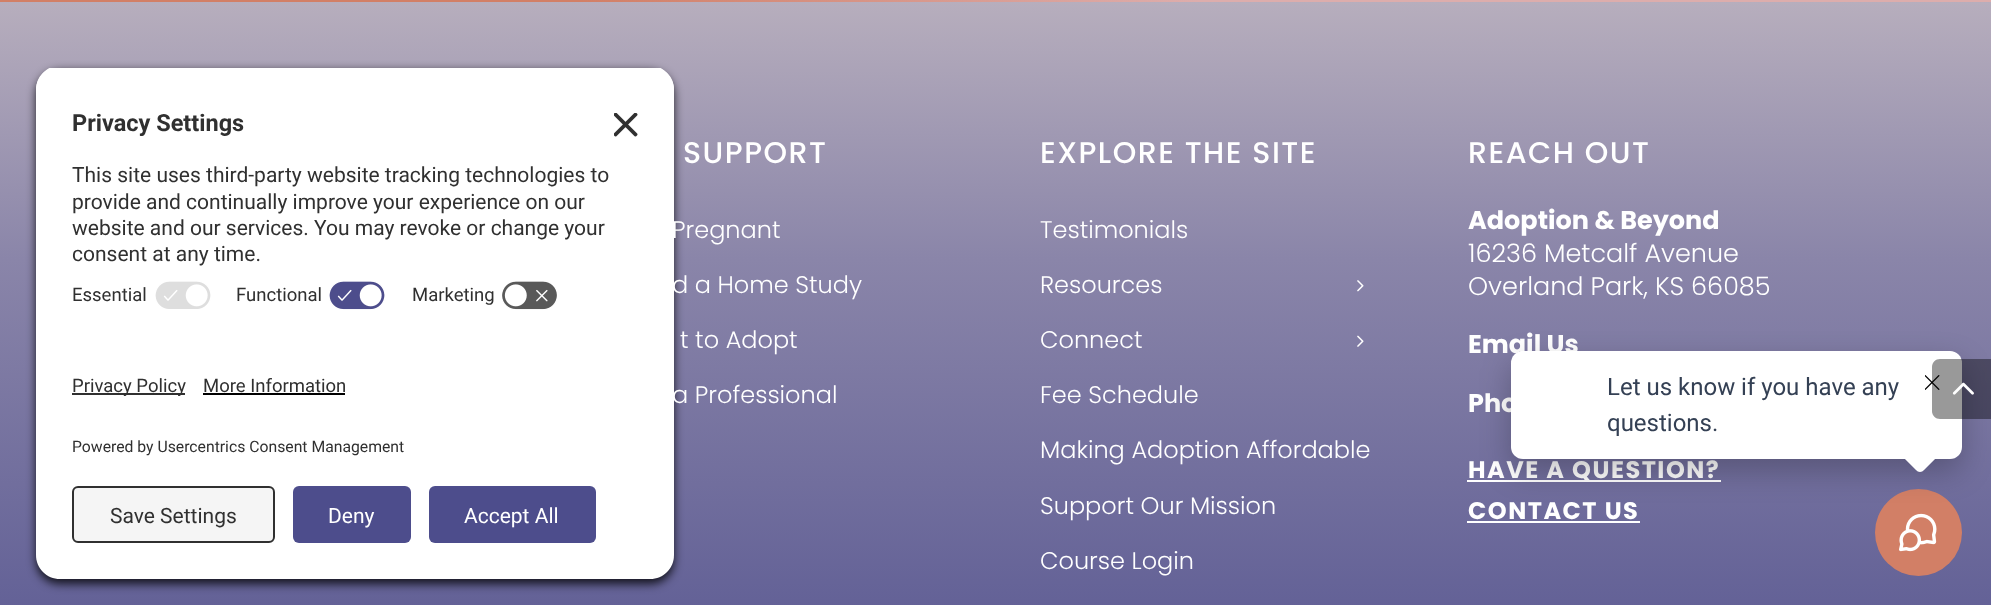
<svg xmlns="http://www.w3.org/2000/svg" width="1991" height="605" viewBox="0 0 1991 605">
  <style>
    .t1 { font: bold 23.5px Roboto; fill: #303030; }
    .t2 { font: 21px Roboto; fill: #303030; }
    .t3 { font: 18.5px Roboto; fill: #303030; }
    .t4 { font: 15.75px Roboto; fill: #303030; }
    .t5 { font: 21px Roboto; fill: #fff; }
    .t6 { font: 500 30px Poppins; letter-spacing: 1.5px; fill: #fff; }
    .t7 { font: 300 24px Poppins; fill: #fff; }
    .t8 { font: bold 25.5px Poppins; fill: #fff; }
    .t9 { font: 300 25.5px Poppins; fill: #fff; }
    .t10 { font: bold 24px Poppins; letter-spacing: 1.5px; fill: #fff; }
    .t11 { font: 24px Roboto; fill: #344054; }
  </style>
  <defs>
    <linearGradient id="g1" gradientUnits="userSpaceOnUse" x1="996" y1="1.5" x2="996" y2="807"><stop offset="0" stop-color="#b7aebd"/><stop offset="0.32" stop-color="#8a85a9"/><stop offset="1" stop-color="#4d4d8c"/></linearGradient>
    <clipPath id="clip1"><path d="M60 66H650C663.5 66 674 76.5 674 90V335H36V90C36 76.5 46.5 66 60 66Z"/></clipPath>
    <linearGradient id="g2" gradientUnits="userSpaceOnUse" x1="669" y1="-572" x2="1323" y2="436"><stop offset="0" stop-color="#d27f66"/><stop offset="0.36" stop-color="#d27f66"/><stop offset="0.64" stop-color="#ddadac"/><stop offset="1" stop-color="#ddadac"/></linearGradient>
  </defs>
  <rect width="100%" height="100%" fill="#fff"/>
  <rect x="0" y="2" width="1991" height="603" fill="url(#g1)"/>
  <rect x="36" y="71" width="638" height="513" rx="24" fill="#000000cc" filter="blur(5px)"/>
  <g clip-path="url(#clip1)">
    <rect x="36" y="68" width="638" height="267" fill="#fff"/>
    <rect x="36" y="68" width="638" height="207" fill="#fff"/>
  </g>
  <text x="72" y="131" class="t1">Privacy Settings</text>
  <image x="614" y="113" width="24" height="24" href="images/1.png"/>
  <text x="72" y="182" class="t2">This site uses third-party website tracking technologies to</text>
  <text x="72" y="209" class="t2">provide and continually improve your experience on our</text>
  <text x="72" y="235" class="t2">website and our services. You may revoke or change your</text>
  <text x="72" y="261" class="t2">consent at any time.</text>
  <text x="72" y="301" class="t3">Essential</text>
  <image x="155" y="281" width="56" height="28" href="images/2.png"/>
  <text x="236" y="301" class="t3">Functional</text>
  <image x="329" y="281" width="56" height="29" href="images/3.png"/>
  <text x="412" y="301" class="t3">Marketing</text>
  <image x="502" y="281" width="55" height="29" href="images/4.png"/>
  <path d="M36 335H674V555C674 568.5 663.5 579 650 579H60C46.5 579 36 568.5 36 555Z" fill="#fff"/>
  <rect x="72" y="393" width="113" height="2" fill="#303030"/>
  <text x="72" y="392" class="t3">Privacy Policy</text>
  <text x="203" y="392" class="t3">More Information</text>
  <rect x="203" y="393" width="142" height="2" fill="#000"/>
  <text x="72" y="452" class="t4">Powered by Usercentrics Consent Management</text>
  <rect x="73" y="487" width="201" height="55" rx="5" fill="#f5f5f5" stroke="#303030" stroke-width="2"/>
  <text x="110" y="523" class="t2">Save Settings</text>
  <rect x="293" y="486" width="118" height="57" rx="6" fill="#4d4d8c"/>
  <text x="328" y="523" class="t5">Deny</text>
  <rect x="429" y="486" width="167" height="57" rx="6" fill="#4d4d8c"/>
  <text x="464" y="523" class="t5">Accept All</text>
  <rect x="0" y="0" width="1991" height="2" fill="url(#g2)"/>
  <text x="683" y="163" class="t6">SUPPORT</text>
  <text x="672" y="238" class="t7">Pregnant</text>
  <text x="672" y="293" class="t7">d a Home Study</text>
  <text x="680" y="348" class="t7">t to Adopt</text>
  <text x="672" y="403" class="t7">a Professional</text>
  <text x="1040" y="163" class="t6">EXPLORE THE SITE</text>
  <text x="1040" y="238" class="t7">Testimonials</text>
  <text x="1040" y="293" class="t7">Resources</text>
  <image x="1357" y="280" width="7" height="12" href="images/5.png"/>
  <text x="1040" y="348" class="t7">Connect</text>
  <image x="1357" y="335" width="7" height="12" href="images/6.png"/>
  <text x="1040" y="403" class="t7">Fee Schedule</text>
  <text x="1040" y="458" class="t7">Making Adoption Affordable</text>
  <text x="1040" y="514" class="t7">Support Our Mission</text>
  <text x="1040" y="569" class="t7">Course Login</text>
  <text x="1468" y="163" class="t6">REACH OUT</text>
  <text x="1468" y="229" class="t8">Adoption &amp; Beyond</text>
  <text x="1468" y="262" class="t9">16236 Metcalf Avenue</text>
  <text x="1468" y="295" class="t9">Overland Park, KS 66085</text>
  <text x="1468" y="353" class="t8">Email Us</text>
  <text x="1468" y="412" class="t8">Pho</text>
  <rect x="1467" y="480" width="254" height="2" fill="#fff"/>
  <text x="1468" y="478" class="t10">HAVE A QUESTION?</text>
  <text x="1468" y="519" class="t10">CONTACT US</text>
  <rect x="1467" y="521" width="173" height="2" fill="#fff"/>
  <circle cx="1918.5" cy="532.5" r="43.5" fill="#d27f66"/>
  <image x="1899" y="513" width="38" height="39" href="images/9.png"/>
  <rect x="1511" y="363" width="451" height="108" rx="12" fill="#0000003d" filter="blur(15px)"/>
  <rect x="1511" y="351" width="451" height="108" rx="12" fill="#fff"/>
  <image x="1925" y="375" width="15" height="15" href="images/8.png"/>
  <path d="M1940 359H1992V419H1940C1935.5 419 1932 415.5 1932 411V367C1932 362.5 1935.5 359 1940 359Z" fill="#00000066"/>
  <image x="1952" y="382" width="22" height="13" href="images/7.png"/>
  <text x="1607" y="395" class="t11">Let us know if you have any</text>
  <text x="1607" y="431" class="t11">questions.</text>
  <path d="M1924 436L1937 449C1939.5 451 1939.5 455 1937 457L1924 470C1922 472.5 1918 472.5 1916 470L1903 457C1900.5 455 1900.5 451 1903 449L1916 436C1918 433.5 1922 433.5 1924 436Z" fill="#fff"/>
</svg>
